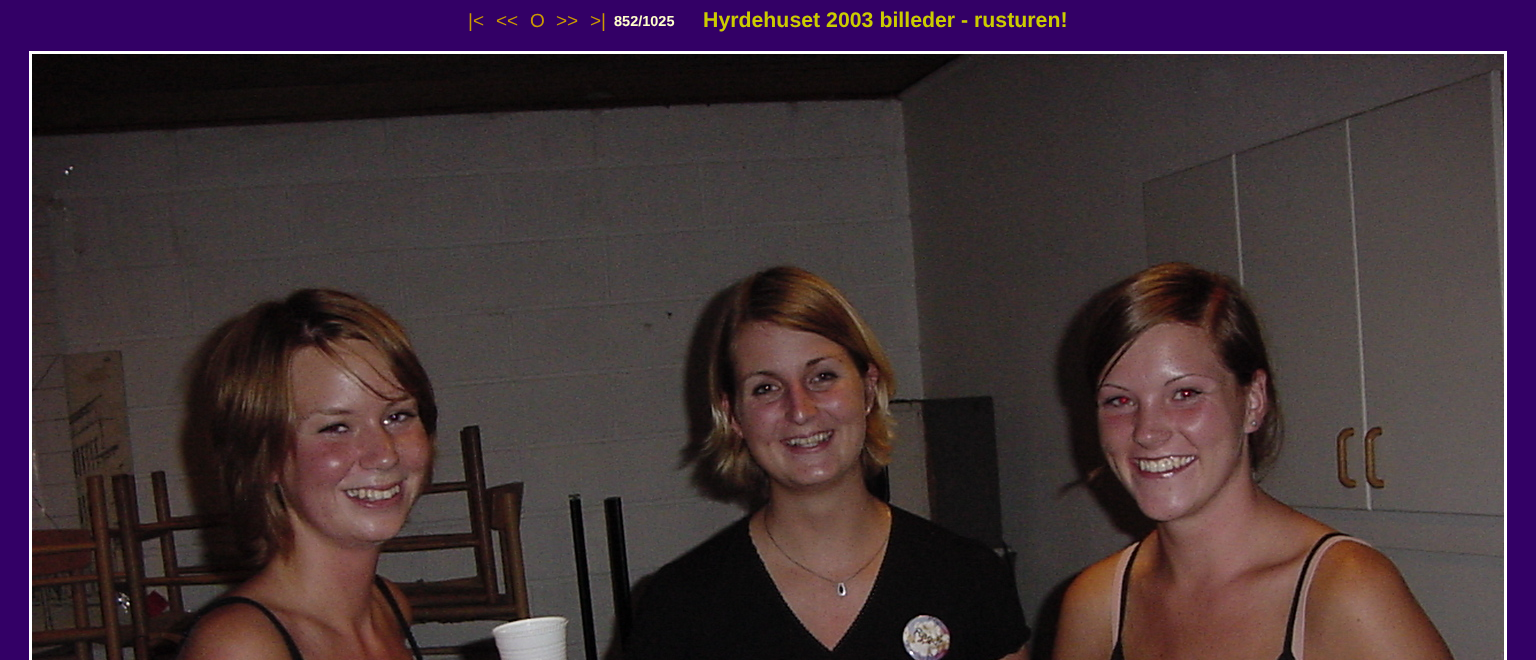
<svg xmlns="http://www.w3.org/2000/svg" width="1536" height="660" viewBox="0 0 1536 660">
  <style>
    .t1 { font: 19px Liberation Sans; fill: #c90; }
    .t2 { font: bold 14.5px Liberation Sans; fill: #ffc; }
    .t3 { font: bold 21.3px Liberation Sans; fill: #cc0; }
  </style>
  <rect width="100%" height="100%" fill="#306"/>
  <text x="468" y="27" class="t1">|&lt;</text>
  <text x="496" y="27" class="t1">&lt;&lt;</text>
  <text x="530" y="27" class="t1">O</text>
  <text x="556" y="27" class="t1">&gt;&gt;</text>
  <text x="590" y="27" class="t1">&gt;|</text>
  <text x="614" y="26" class="t2">852/1025</text>
  <text x="703" y="27" class="t3">Hyrdehuset 2003 billeder - rusturen!</text>
  <rect x="29" y="51" width="1478" height="609" fill="#fff"/>
  <image x="32" y="54" width="1472" height="606" href="images/1.png"/>
</svg>
